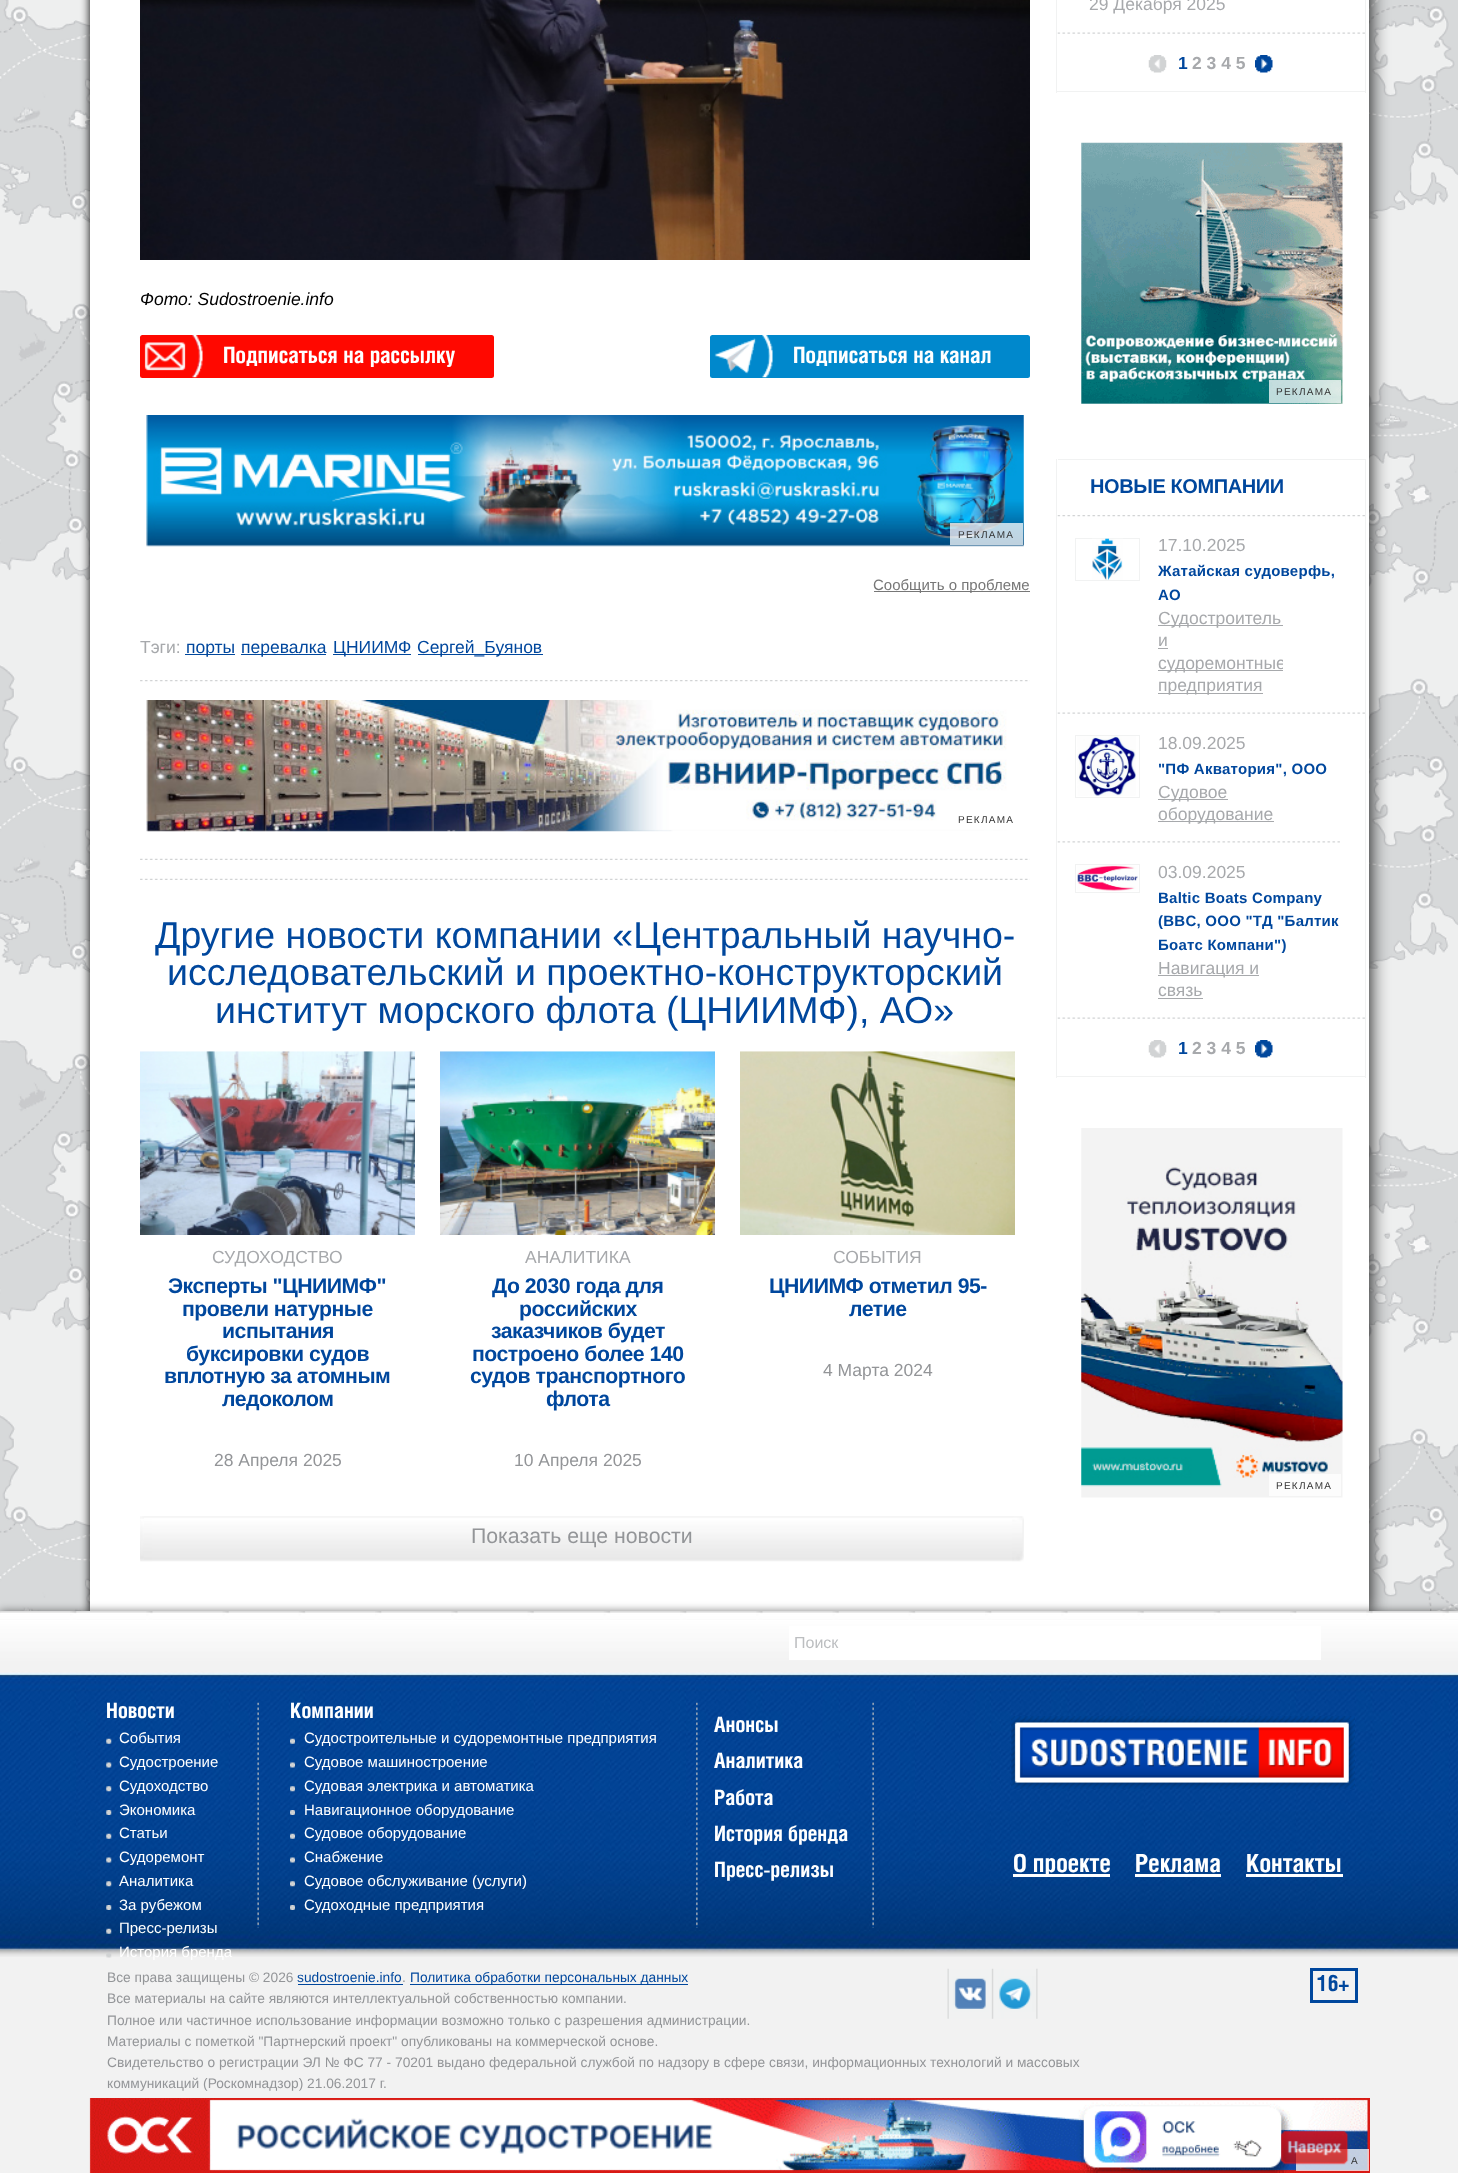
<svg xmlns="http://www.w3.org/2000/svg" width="1458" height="2173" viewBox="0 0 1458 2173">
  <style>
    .t1 { font: italic 17.5px Liberation Sans; fill: #000; }
    .t2 { font: bold 22.5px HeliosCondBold; fill: #fff; }
    .t3 { font: 10px Liberation Sans; letter-spacing: 1.25px; fill: #333; }
    .t4 { font: 15px Liberation Sans; fill: #777; }
    .t5 { font: 17.5px Liberation Sans; fill: #a7a9ac; }
    .t6 { font: 17.5px Liberation Sans; fill: #00479d; }
    .t7 { font: 37.5px Liberation Sans; fill: #00479d; }
    .t8 { font: bold 21.25px Liberation Sans; letter-spacing: -0.5px; fill: #00479d; }
    .t9 { font: 17.5px Liberation Sans; fill: #939598; }
    .t10 { font: 21.25px Liberation Sans; fill: #939598; }
    .t11 { font: bold 17.5px Liberation Sans; fill: #00479d; }
    .t12 { font: bold 17.5px Liberation Sans; fill: #a7a9ac; }
    .t13 { font: bold 20px Liberation Sans; letter-spacing: -0.4px; fill: #00479d; }
    .t14 { font: bold 15px Liberation Sans; letter-spacing: 0.25px; fill: #00479d; }
    .t15 { font: 16px Liberation Sans; fill: #bcbec0; }
    .t16 { font: bold 21.25px HeliosCondBold; fill: #fff; }
    .t17 { font: 15px Liberation Sans; fill: #fff; }
    .t18 { font: bold 25px HeliosCondBold; fill: #fff; }
    .t19 { font: 13.75px Liberation Sans; fill: #939598; }
    .t20 { font: 13.75px Liberation Sans; fill: #00479d; }
    .t21 { font: bold 22.5px HeliosCondBold; fill: #00479d; }
  </style>
  <defs>
    <clipPath id="clip1"><rect x="1158" y="606" width="125" height="90"/></clipPath>
  </defs>
  <rect width="100%" height="100%" fill="#fff"/>
  <image x="0" y="0" width="1458" height="1611" href="images/1.png"/>
  <rect x="90" y="-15" width="1249" height="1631" fill="#000" filter="blur(5px)"/>
  <rect x="120" y="-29" width="1249" height="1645" fill="#000" filter="blur(9.5px)"/>
  <rect x="90" y="0" width="1279" height="1611" fill="#fff"/>
  <image x="140" y="0" width="890" height="260" href="images/2.png"/>
  <text x="140" y="305" class="t1">Фото: Sudostroenie.info</text>
  <rect x="140" y="335" width="354" height="43" rx="2.5" fill="#ff0800"/>
  <image x="144" y="335" width="59" height="43" href="images/3.png"/>
  <text x="223" y="363" class="t2">Подписаться на рассылку</text>
  <rect x="710" y="335" width="320" height="43" rx="2.5" fill="#08c"/>
  <image x="714" y="335" width="59" height="43" href="images/4.png"/>
  <text x="793" y="363" class="t2">Подписаться на канал</text>
  <image x="146" y="415" width="878" height="132" href="images/5.png"/>
  <rect x="950" y="523" width="73" height="22" fill="#ffffffbf"/>
  <text x="958" y="538" class="t3">РЕКЛАМА</text>
  <rect x="874" y="591" width="156" height="1" fill="#777"/>
  <text x="873" y="590" class="t4">Сообщить о проблеме</text>
  <text x="140" y="653" class="t5">Тэги:</text>
  <rect x="185" y="654" width="50" height="1" fill="#00479d"/>
  <text x="186" y="653" class="t6">порты</text>
  <rect x="241" y="654" width="85" height="1" fill="#00479d"/>
  <text x="241" y="653" class="t6">перевалка</text>
  <rect x="333" y="654" width="78" height="1" fill="#00479d"/>
  <text x="333" y="653" class="t6">ЦНИИМФ</text>
  <rect x="418" y="654" width="125" height="1" fill="#00479d"/>
  <text x="417" y="653" class="t6">Сергей_Буянов</text>
  <image x="140" y="680" width="890" height="2" href="images/6.png"/>
  <image x="146" y="700" width="861" height="132" href="images/7.png"/>
  <text x="958" y="823" class="t3">РЕКЛАМА</text>
  <image x="140" y="858" width="890" height="2" href="images/8.png"/>
  <image x="140" y="878" width="890" height="2" href="images/8.png"/>
  <text x="155" y="948" class="t7">Другие новости компании «Центральный научно-</text>
  <text x="167" y="985" class="t7">исследовательский и проектно-конструкторский</text>
  <text x="215" y="1023" class="t7">институт морского флота (ЦНИИМФ), АО»</text>
  <image x="140" y="1051" width="275" height="184" href="images/9.png"/>
  <text x="212" y="1263" class="t5">СУДОХОДСТВО</text>
  <text x="168" y="1293" class="t8">Эксперты "ЦНИИМФ"</text>
  <text x="182" y="1316" class="t8">провели натурные</text>
  <text x="222" y="1338" class="t8">испытания</text>
  <text x="186" y="1361" class="t8">буксировки судов</text>
  <text x="164" y="1383" class="t8">вплотную за атомным</text>
  <text x="222" y="1406" class="t8">ледоколом</text>
  <text x="214" y="1466" class="t9">28 Апреля 2025</text>
  <image x="440" y="1051" width="275" height="184" href="images/10.png"/>
  <text x="525" y="1263" class="t5">АНАЛИТИКА</text>
  <text x="492" y="1293" class="t8">До 2030 года для</text>
  <text x="519" y="1316" class="t8">российских</text>
  <text x="491" y="1338" class="t8">заказчиков будет</text>
  <text x="472" y="1361" class="t8">построено более 140</text>
  <text x="470" y="1383" class="t8">судов транспортного</text>
  <text x="546" y="1406" class="t8">флота</text>
  <text x="514" y="1466" class="t9">10 Апреля 2025</text>
  <image x="740" y="1051" width="275" height="184" href="images/11.png"/>
  <text x="833" y="1263" class="t5">СОБЫТИЯ</text>
  <text x="769" y="1293" class="t8">ЦНИИМФ отметил 95-</text>
  <text x="849" y="1316" class="t8">летие</text>
  <text x="823" y="1376" class="t9">4 Марта 2024</text>
  <image x="140" y="1516" width="884" height="46" href="images/12.png"/>
  <text x="471" y="1543" class="t10">Показать еще новости</text>
  <rect x="1365" y="0" width="1" height="93" fill="#f1f2f2"/>
  <rect x="1056" y="91" width="310" height="1" fill="#f1f2f2"/>
  <rect x="1056" y="0" width="1" height="93" fill="#f1f2f2"/>
  <image x="1057" y="32" width="308" height="2" href="images/13.png"/>
  <text x="1089" y="10" class="t5">29 Декабря 2025</text>
  <image x="1148" y="55" width="19" height="18" href="images/14.png"/>
  <text x="1178" y="69" class="t11">1</text>
  <text x="1192" y="69" class="t12">2 3 4 5</text>
  <image x="1255" y="55" width="18" height="18" href="images/15.png"/>
  <image x="1081" y="142" width="262" height="262" href="images/16.png"/>
  <rect x="1269" y="380" width="72" height="23" fill="#ffffffbf"/>
  <text x="1276" y="395" class="t3">РЕКЛАМА</text>
  <rect x="1365" y="459" width="1" height="619" fill="#f1f2f2"/>
  <rect x="1056" y="1076" width="310" height="1" fill="#f1f2f2"/>
  <rect x="1056" y="459" width="1" height="619" fill="#f1f2f2"/>
  <image x="1057" y="515" width="308" height="2" href="images/17.png"/>
  <rect x="1058" y="459" width="307" height="1" fill="#f1f2f2"/>
  <text x="1090" y="493" class="t13">НОВЫЕ КОМПАНИИ</text>
  <image x="1057" y="712" width="308" height="2" href="images/13.png"/>
  <rect x="1075.5" y="538.5" width="64" height="42" fill="none" stroke="#f1f2f2"/>
  <image x="1092" y="538" width="31" height="42" href="images/18.png"/>
  <text x="1158" y="551" class="t5">17.10.2025</text>
  <text x="1158" y="576" class="t14">Жатайская судоверфь,</text>
  <text x="1158" y="600" class="t14">АО</text>
  <rect x="1158" y="625" width="125" height="1" fill="#a7a9ac"/>
  <text x="1158" y="624" class="t5">Судостроитель</text>
  <text x="1158" y="646" class="t5">и</text>
  <rect x="1158" y="648" width="10" height="1" fill="#a7a9ac"/>
  <rect x="1158" y="670" width="125" height="1" fill="#a7a9ac"/>
  <g clip-path="url(#clip1)">
    <text x="1158" y="669" class="t5">судоремонтные</text>
  </g>
  <rect x="1158" y="693" width="105" height="1" fill="#a7a9ac"/>
  <text x="1158" y="691" class="t5">предприятия</text>
  <image x="1057" y="841" width="283" height="2" href="images/19.png"/>
  <rect x="1075.5" y="735.5" width="64" height="62" fill="none" stroke="#f1f2f2"/>
  <image x="1077" y="736" width="59" height="60" href="images/20.png"/>
  <text x="1158" y="749" class="t5">18.09.2025</text>
  <text x="1158" y="774" class="t14">"ПФ Акватория", ООО</text>
  <rect x="1158" y="799" width="70" height="1" fill="#a7a9ac"/>
  <text x="1158" y="798" class="t5">Судовое</text>
  <rect x="1158" y="821" width="116" height="1" fill="#a7a9ac"/>
  <text x="1158" y="820" class="t5">оборудование</text>
  <image x="1057" y="1017" width="308" height="2" href="images/13.png"/>
  <rect x="1075.5" y="864.5" width="64" height="28" fill="none" stroke="#f1f2f2"/>
  <image x="1077" y="865" width="61" height="26" href="images/21.png"/>
  <text x="1158" y="878" class="t5">03.09.2025</text>
  <text x="1158" y="903" class="t14">Baltic Boats Company</text>
  <text x="1158" y="926" class="t14">(BBC, ООО "ТД "Балтик</text>
  <text x="1158" y="950" class="t14">Боатс Компани")</text>
  <rect x="1158" y="975" width="101" height="1" fill="#a7a9ac"/>
  <text x="1158" y="974" class="t5">Навигация и</text>
  <text x="1158" y="996" class="t5">связь</text>
  <rect x="1158" y="998" width="45" height="1" fill="#a7a9ac"/>
  <image x="1148" y="1040" width="19" height="18" href="images/14.png"/>
  <text x="1178" y="1054" class="t11">1</text>
  <text x="1192" y="1054" class="t12">2 3 4 5</text>
  <image x="1255" y="1040" width="18" height="18" href="images/15.png"/>
  <image x="1081" y="1128" width="262" height="370" href="images/22.png"/>
  <rect x="1269" y="1474" width="72" height="22" fill="#ffffffbf"/>
  <text x="1276" y="1489" class="t3">РЕКЛАМА</text>
  <rect x="0" y="1611" width="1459" height="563" fill="#00000080" filter="blur(4px)"/>
  <rect x="0" y="1611" width="1458" height="562" fill="#f2f2f2"/>
  <image x="0" y="1611" width="1458" height="346" href="images/23.png"/>
  <rect x="789" y="1626" width="532" height="34" fill="#fff"/>
  <text x="794" y="1648" class="t15">Поиск</text>
  <image x="257" y="1702" width="2" height="226" href="images/24.png"/>
  <text x="106" y="1718" class="t16">Новости</text>
  <image x="106" y="1738" width="6" height="6" href="images/25.png"/>
  <text x="119" y="1743" class="t17">События</text>
  <image x="106" y="1762" width="6" height="6" href="images/26.png"/>
  <text x="119" y="1767" class="t17">Судостроение</text>
  <image x="106" y="1786" width="6" height="6" href="images/27.png"/>
  <text x="119" y="1791" class="t17">Судоходство</text>
  <image x="106" y="1810" width="6" height="5" href="images/28.png"/>
  <text x="119" y="1815" class="t17">Экономика</text>
  <image x="106" y="1833" width="6" height="6" href="images/29.png"/>
  <text x="119" y="1838" class="t17">Статьи</text>
  <image x="106" y="1857" width="6" height="6" href="images/30.png"/>
  <text x="119" y="1862" class="t17">Судоремонт</text>
  <image x="106" y="1881" width="6" height="6" href="images/31.png"/>
  <text x="119" y="1886" class="t17">Аналитика</text>
  <image x="106" y="1905" width="6" height="5" href="images/32.png"/>
  <text x="119" y="1910" class="t17">За рубежом</text>
  <image x="106" y="1928" width="6" height="6" href="images/33.png"/>
  <text x="119" y="1933" class="t17">Пресс-релизы</text>
  <image x="106" y="1953" width="6" height="5" href="images/34.png"/>
  <text x="119" y="1957" class="t17">История бренда</text>
  <image x="696" y="1702" width="2" height="226" href="images/35.png"/>
  <text x="290" y="1718" class="t16">Компании</text>
  <image x="290" y="1738" width="5" height="6" href="images/36.png"/>
  <text x="304" y="1743" class="t17">Судостроительные и судоремонтные предприятия</text>
  <image x="290" y="1762" width="5" height="6" href="images/37.png"/>
  <text x="304" y="1767" class="t17">Судовое машиностроение</text>
  <image x="290" y="1786" width="5" height="6" href="images/38.png"/>
  <text x="304" y="1791" class="t17">Судовая электрика и автоматика</text>
  <image x="290" y="1810" width="5" height="5" href="images/39.png"/>
  <text x="304" y="1815" class="t17">Навигационное оборудование</text>
  <image x="290" y="1833" width="5" height="6" href="images/40.png"/>
  <text x="304" y="1838" class="t17">Судовое оборудование</text>
  <image x="290" y="1857" width="5" height="6" href="images/41.png"/>
  <text x="304" y="1862" class="t17">Снабжение</text>
  <image x="290" y="1881" width="5" height="6" href="images/42.png"/>
  <text x="304" y="1886" class="t17">Cудовое обслуживание (услуги)</text>
  <image x="290" y="1905" width="5" height="5" href="images/43.png"/>
  <text x="304" y="1910" class="t17">Судоходные предприятия</text>
  <image x="872" y="1702" width="2" height="226" href="images/44.png"/>
  <text x="714" y="1732" class="t16">Анонсы</text>
  <text x="714" y="1768" class="t16">Аналитика</text>
  <text x="714" y="1805" class="t16">Работа</text>
  <text x="714" y="1841" class="t16">История бренда</text>
  <text x="714" y="1877" class="t16">Пресс-релизы</text>
  <image x="1011" y="1716" width="344" height="73" href="images/45.png"/>
  <rect x="1013" y="1874" width="97" height="3" fill="#fff"/>
  <text x="1013" y="1872" class="t18">О проекте</text>
  <text x="1135" y="1872" class="t18">Реклама</text>
  <rect x="1135" y="1874" width="86" height="3" fill="#fff"/>
  <text x="1246" y="1872" class="t18">Контакты</text>
  <rect x="1246" y="1874" width="97" height="3" fill="#fff"/>
  <image x="947" y="1968" width="91" height="51" href="images/46.png"/>
  <text x="107" y="1982" class="t19">Все права защищены © 2026</text>
  <text x="297" y="1982" class="t20">sudostroenie.info</text>
  <rect x="298" y="1984" width="105" height="1" fill="#00479d"/>
  <text x="402" y="1982" class="t19">.</text>
  <rect x="410" y="1984" width="278" height="1" fill="#00479d"/>
  <text x="410" y="1982" class="t20">Политика обработки персональных данных</text>
  <text x="107" y="2003" class="t19">Все материалы на сайте являются интеллектуальной собственностью компании.</text>
  <text x="107" y="2025" class="t19">Полное или частичное использование информации возможно только с разрешения администрации.</text>
  <text x="107" y="2046" class="t19">Материалы с пометкой "Партнерский проект" опубликованы на коммерческой основе.</text>
  <text x="107" y="2067" class="t19">Свидетельство о регистрации ЭЛ № ФС 77 - 70201 выдано федеральной службой по надзору в сфере связи, информационных технологий и массовых</text>
  <text x="107" y="2088" class="t19">коммуникаций (Роскомнадзор) 21.06.2017 г.</text>
  <rect x="1311.5" y="1969.5" width="45" height="32" fill="none" stroke="#00479d" stroke-width="3"/>
  <text x="1317" y="1991" class="t21">16+</text>
  <image x="89" y="2098" width="1281" height="75" href="images/48.png"/>
  <rect x="1296" y="2149" width="73" height="22" fill="#ffffffbf"/>
  <image x="1281" y="2131" width="68" height="34" href="images/47.png"/>
  <text x="1351" y="2164" class="t3">А</text>
</svg>
